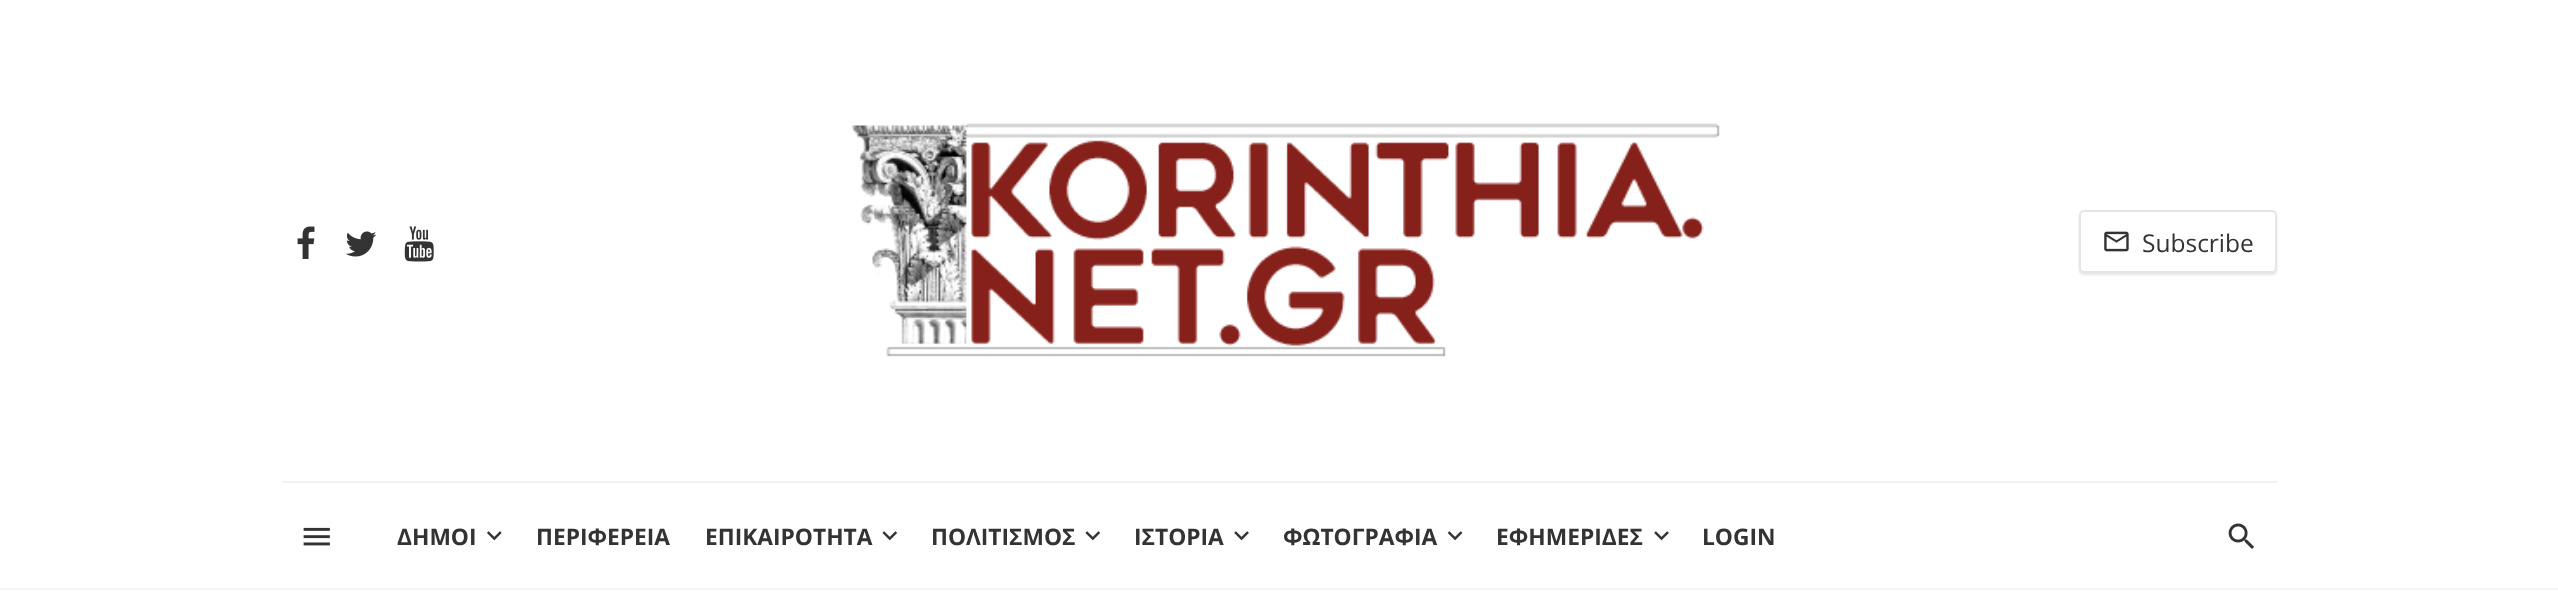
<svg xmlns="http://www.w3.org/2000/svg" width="2558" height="611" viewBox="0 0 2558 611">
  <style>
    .t1 { font: 24.5px Open Sans; fill: #333; }
    .t2 { font: bold 22.75px Open Sans; fill: #333; }
  </style>
  <rect width="100%" height="100%" fill="#fff"/>
  <path d="M0 588V590H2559V2H2558V588Z" fill="#f5f5f5"/>
  <image x="297" y="226" width="18" height="33" href="images/1.png"/>
  <image x="345" y="231" width="32" height="26" href="images/2.png"/>
  <image x="404" y="226" width="30" height="36" href="images/3.png"/>
  <image x="847" y="123" width="873" height="234" href="images/4.png"/>
  <rect x="2079" y="212" width="198" height="63" rx="5" fill="#0000001a" filter="blur(1px)"/>
  <rect x="2079" y="210" width="198" height="63" rx="5" fill="#fff"/>
  <rect x="2080" y="211" width="196" height="61" rx="4" fill="none" stroke="#0000001a" stroke-width="2"/>
  <image x="2104" y="231" width="25" height="21" href="images/5.png"/>
  <text x="2142" y="252" class="t1">Subscribe</text>
  <path d="M282 481V483H2277V586V481Z" fill="#f2f2f2"/>
  <image x="303" y="527" width="27" height="19" href="images/6.png"/>
  <text x="397" y="545" class="t2">ΔΗΜΟΙ</text>
  <image x="487" y="531" width="15" height="10" href="images/7.png"/>
  <text x="536" y="545" class="t2">ΠΕΡΙΦΕΡΕΙΑ</text>
  <text x="705" y="545" class="t2">ΕΠΙΚΑΙΡΟΤΗΤΑ</text>
  <image x="882" y="531" width="16" height="10" href="images/8.png"/>
  <text x="931" y="545" class="t2">ΠΟΛΙΤΙΣΜΟΣ</text>
  <image x="1085" y="531" width="16" height="10" href="images/8.png"/>
  <text x="1134" y="545" class="t2">ΙΣΤΟΡΙΑ</text>
  <image x="1234" y="531" width="15" height="10" href="images/9.png"/>
  <text x="1283" y="545" class="t2">ΦΩΤΟΓΡΑΦΙΑ</text>
  <image x="1447" y="531" width="16" height="10" href="images/10.png"/>
  <text x="1496" y="545" class="t2">ΕΦΗΜΕΡΙΔΕΣ</text>
  <image x="1654" y="531" width="15" height="10" href="images/9.png"/>
  <text x="1702" y="545" class="t2">LOGIN</text>
  <image x="2228" y="523" width="26" height="26" href="images/11.png"/>
</svg>
